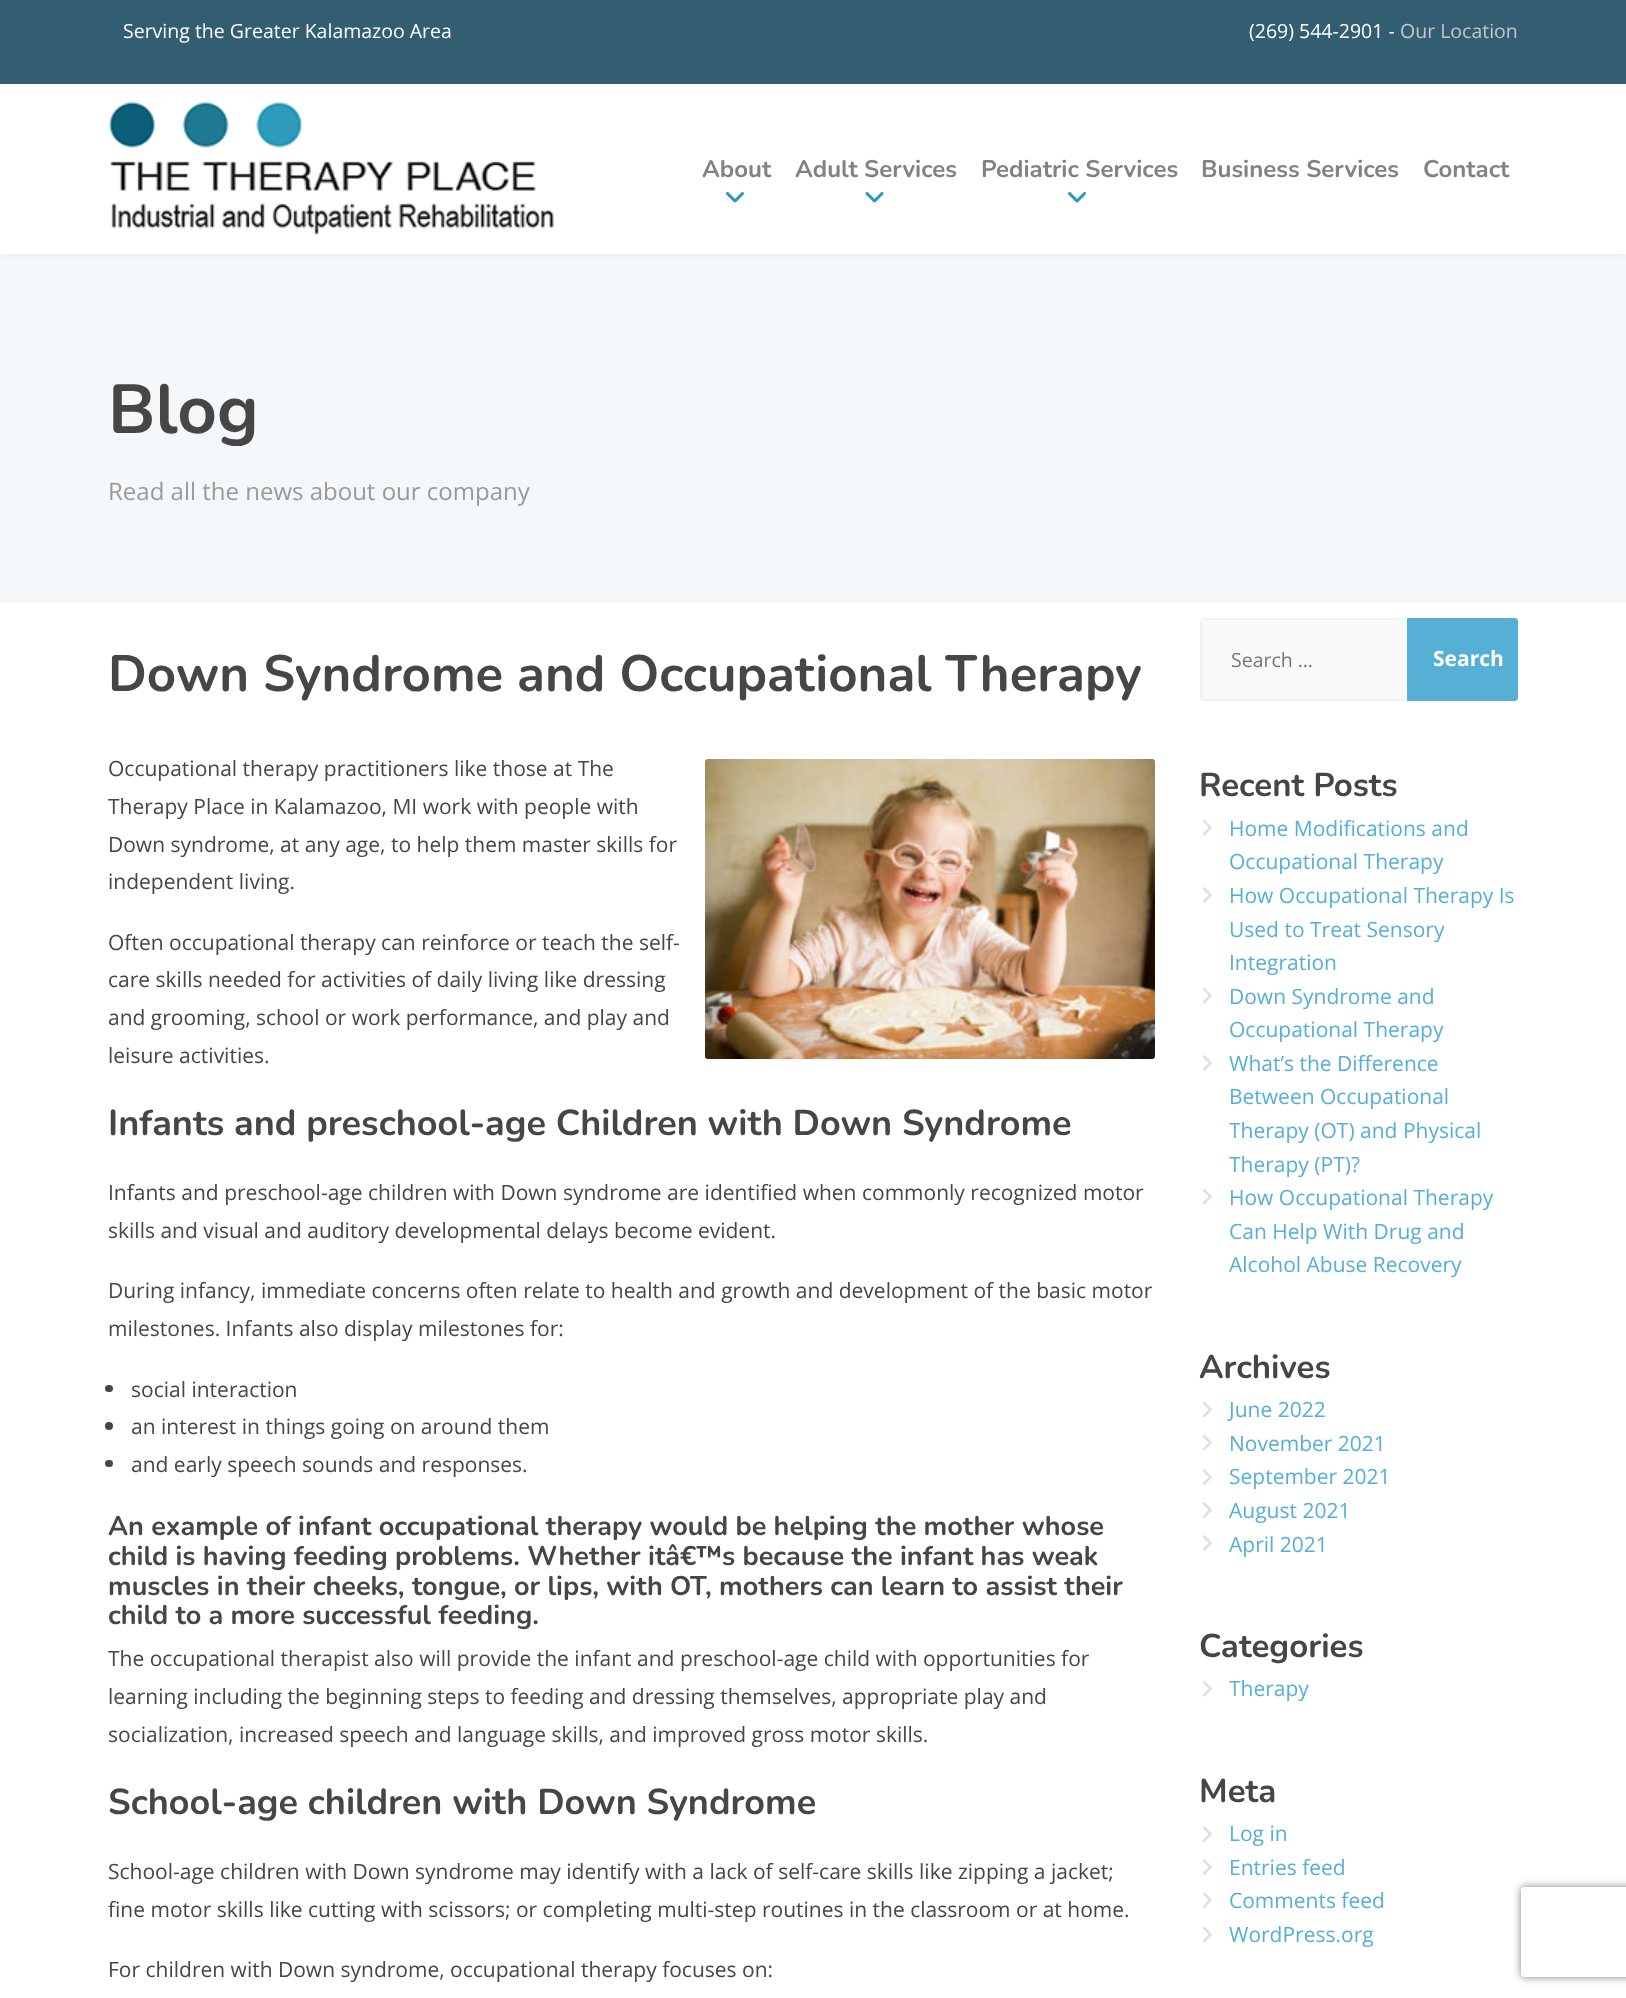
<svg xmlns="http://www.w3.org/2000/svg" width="1626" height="1998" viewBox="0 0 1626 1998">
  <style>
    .t1 { font: 19.5px Open Sans; fill: #fff; }
    .t2 { font: 19.5px Open Sans; fill: #c1c7ce; }
    .t3 { font: bold 24px Nunito; fill: #828282; }
    .t4 { font: bold 69px Nunito; fill: #464646; }
    .t5 { font: 24px Open Sans; fill: #999; }
    .t6 { font: bold 51px Nunito; fill: #464646; }
    .t7 { font: 21px Open Sans; fill: #464646; }
    .t8 { font: bold 36px Nunito; fill: #464646; }
    .t9 { font: bold 27px Nunito; fill: #464646; }
    .t10 { font: 19.5px Open Sans; fill: #757575; }
    .t11 { font: bold 21px Open Sans; fill: #fff; }
    .t12 { font: bold 33px Nunito; fill: #464646; }
    .t13 { font: 21px Open Sans; fill: #56afd5; }
  </style>
  <defs>
    <clipPath id="clip1"><path d="M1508 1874H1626V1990H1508ZM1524 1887H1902C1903.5 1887 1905 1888.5 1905 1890V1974C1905 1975.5 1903.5 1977 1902 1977H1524C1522.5 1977 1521 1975.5 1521 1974V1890C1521 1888.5 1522.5 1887 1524 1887Z" clip-rule="evenodd"/></clipPath>
  </defs>
  <rect width="100%" height="100%" fill="#fff"/>
  <rect x="0" y="0" width="1626" height="84" fill="#335e71"/>
  <text x="123" y="38" class="t1">Serving the Greater Kalamazoo Area</text>
  <text x="1249" y="38" class="t1">(269) 544-2901 -</text>
  <text x="1400" y="38" class="t2">Our Location</text>
  <rect x="0" y="254" width="1626" height="349" fill="#f5f8fb"/>
  <rect x="0" y="86" width="1626" height="169" fill="#32323212" filter="blur(2px)"/>
  <rect x="0" y="84" width="1626" height="170" fill="#fff"/>
  <image x="109" y="101" width="445" height="134" href="images/1.png"/>
  <text x="702" y="177" class="t3">About</text>
  <image x="726" y="192" width="18" height="11" href="images/2.png"/>
  <text x="795" y="177" class="t3">Adult Services</text>
  <image x="865" y="192" width="19" height="11" href="images/3.png"/>
  <text x="981" y="177" class="t3">Pediatric Services</text>
  <image x="1068" y="192" width="18" height="11" href="images/2.png"/>
  <text x="1201" y="177" class="t3">Business Services</text>
  <text x="1423" y="177" class="t3">Contact</text>
  <text x="108" y="433" class="t4">Blog</text>
  <text x="108" y="500" class="t5">Read all the news about our company</text>
  <text x="108" y="691" class="t6">Down Syndrome and Occupational Therapy</text>
  <text x="108" y="776" class="t7">Occupational therapy practitioners like those at The</text>
  <text x="108" y="814" class="t7">Therapy Place in Kalamazoo, MI work with people with</text>
  <text x="108" y="852" class="t7">Down syndrome, at any age, to help them master skills for</text>
  <text x="108" y="889" class="t7">independent living.</text>
  <image x="705" y="759" width="450" height="300" href="images/4.png"/>
  <text x="108" y="950" class="t7">Often occupational therapy can reinforce or teach the self-</text>
  <text x="108" y="987" class="t7">care skills needed for activities of daily living like dressing</text>
  <text x="108" y="1025" class="t7">and grooming, school or work performance, and play and</text>
  <text x="108" y="1063" class="t7">leisure activities.</text>
  <text x="108" y="1135" class="t8">Infants and preschool-age Children with Down Syndrome</text>
  <text x="108" y="1200" class="t7">Infants and preschool-age children with Down syndrome are identified when commonly recognized motor</text>
  <text x="108" y="1238" class="t7">skills and visual and auditory developmental delays become evident.</text>
  <text x="108" y="1298" class="t7">During infancy, immediate concerns often relate to health and growth and development of the basic motor</text>
  <text x="108" y="1336" class="t7">milestones. Infants also display milestones for:</text>
  <rect x="105" y="1385" width="8" height="7" rx="3.5" fill="#464646"/>
  <text x="131" y="1397" class="t7">social interaction</text>
  <circle cx="109" cy="1426" r="4" fill="#464646"/>
  <text x="131" y="1434" class="t7">an interest in things going on around them</text>
  <rect x="105" y="1460" width="8" height="7" rx="3.5" fill="#464646"/>
  <text x="131" y="1472" class="t7">and early speech sounds and responses.</text>
  <text x="108" y="1535" class="t9">An example of infant occupational therapy would be helping the mother whose</text>
  <text x="108" y="1565" class="t9">child is having feeding problems. Whether itâ€™s because the infant has weak</text>
  <text x="108" y="1595" class="t9">muscles in their cheeks, tongue, or lips, with OT, mothers can learn to assist their</text>
  <text x="108" y="1624" class="t9">child to a more successful feeding.</text>
  <text x="108" y="1666" class="t7">The occupational therapist also will provide the infant and preschool-age child with opportunities for</text>
  <text x="108" y="1704" class="t7">learning including the beginning steps to feeding and dressing themselves, appropriate play and</text>
  <text x="108" y="1742" class="t7">socialization, increased speech and language skills, and improved gross motor skills.</text>
  <text x="108" y="1814" class="t8">School-age children with Down Syndrome</text>
  <text x="108" y="1879" class="t7">School-age children with Down syndrome may identify with a lack of self-care skills like zipping a jacket;</text>
  <text x="108" y="1917" class="t7">fine motor skills like cutting with scissors; or completing multi-step routines in the classroom or at home.</text>
  <text x="108" y="1977" class="t7">For children with Down syndrome, occupational therapy focuses on:</text>
  <path d="M1203 620H1404C1406 620 1407 620 1407 621V698C1407 698 1406 699 1404 699H1203C1202 699 1202 698 1202 698V621C1202 620 1202 620 1203 620Z" fill="#f9f9f9"/>
  <rect x="1202" y="618" width="204" height="2" fill="#f2f2f2"/>
  <rect x="1202" y="699" width="204" height="2" fill="#f2f2f2"/>
  <rect x="1200" y="620" width="2" height="79" fill="#f2f2f2"/>
  <text x="1231" y="667" class="t10">Search …</text>
  <path d="M1407 618H1515C1516.5 618 1518 619.5 1518 621V698C1518 699.5 1516.5 701 1515 701H1407Z" fill="#56afd5"/>
  <text x="1433" y="666" class="t11">Search</text>
  <text x="1199" y="796" class="t12">Recent Posts</text>
  <image x="1202" y="820" width="10" height="16" href="images/5.png"/>
  <text x="1229" y="836" class="t13">Home Modifications and</text>
  <text x="1229" y="869" class="t13">Occupational Therapy</text>
  <image x="1202" y="887" width="10" height="16" href="images/6.png"/>
  <text x="1229" y="903" class="t13">How Occupational Therapy Is</text>
  <text x="1229" y="937" class="t13">Used to Treat Sensory</text>
  <text x="1229" y="970" class="t13">Integration</text>
  <image x="1202" y="988" width="10" height="16" href="images/5.png"/>
  <text x="1229" y="1004" class="t13">Down Syndrome and</text>
  <text x="1229" y="1037" class="t13">Occupational Therapy</text>
  <image x="1202" y="1055" width="10" height="16" href="images/6.png"/>
  <text x="1229" y="1071" class="t13">What’s the Difference</text>
  <text x="1229" y="1104" class="t13">Between Occupational</text>
  <text x="1229" y="1138" class="t13">Therapy (OT) and Physical</text>
  <text x="1229" y="1172" class="t13">Therapy (PT)?</text>
  <image x="1202" y="1189" width="10" height="16" href="images/5.png"/>
  <text x="1229" y="1205" class="t13">How Occupational Therapy</text>
  <text x="1229" y="1239" class="t13">Can Help With Drug and</text>
  <text x="1229" y="1272" class="t13">Alcohol Abuse Recovery</text>
  <text x="1199" y="1378" class="t12">Archives</text>
  <image x="1202" y="1402" width="10" height="16" href="images/5.png"/>
  <text x="1229" y="1417" class="t13">June 2022</text>
  <image x="1202" y="1435" width="10" height="16" href="images/5.png"/>
  <text x="1229" y="1451" class="t13">November 2021</text>
  <image x="1202" y="1469" width="10" height="16" href="images/6.png"/>
  <text x="1229" y="1484" class="t13">September 2021</text>
  <image x="1202" y="1502" width="10" height="16" href="images/6.png"/>
  <text x="1229" y="1518" class="t13">August 2021</text>
  <image x="1202" y="1535" width="10" height="16" href="images/6.png"/>
  <text x="1229" y="1552" class="t13">April 2021</text>
  <text x="1199" y="1657" class="t12">Categories</text>
  <image x="1202" y="1681" width="10" height="16" href="images/5.png"/>
  <text x="1229" y="1696" class="t13">Therapy</text>
  <text x="1199" y="1802" class="t12">Meta</text>
  <image x="1202" y="1826" width="10" height="16" href="images/6.png"/>
  <text x="1229" y="1841" class="t13">Log in</text>
  <image x="1202" y="1859" width="10" height="16" href="images/6.png"/>
  <text x="1229" y="1875" class="t13">Entries feed</text>
  <image x="1202" y="1892" width="10" height="16" href="images/6.png"/>
  <text x="1229" y="1908" class="t13">Comments feed</text>
  <image x="1202" y="1927" width="10" height="16" href="images/5.png"/>
  <text x="1229" y="1942" class="t13">WordPress.org</text>
  <g clip-path="url(#clip1)">
    <rect x="1521" y="1887" width="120" height="90" rx="3" fill="#808080" filter="blur(4px)"/>
  </g>
</svg>
